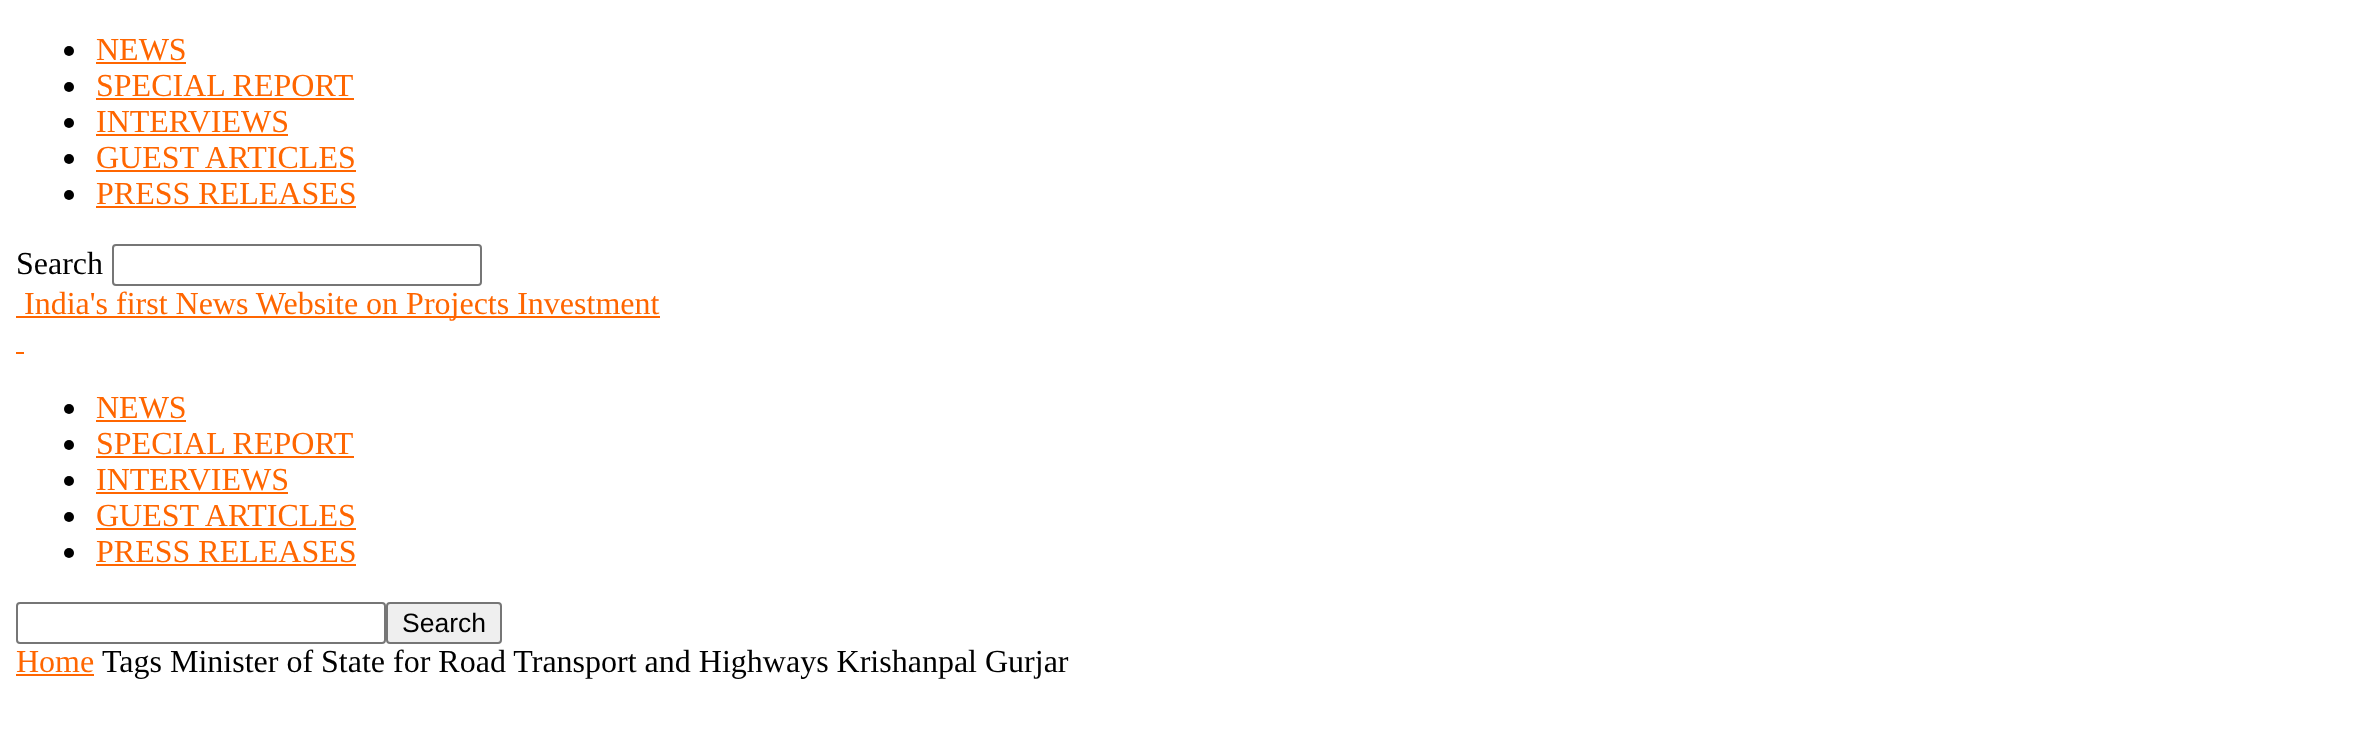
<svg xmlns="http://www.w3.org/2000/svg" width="2378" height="756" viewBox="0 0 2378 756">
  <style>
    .t1 { font: 32px Liberation Serif; fill: #f60; }
    .t2 { font: 32px Liberation Serif; fill: #000; }
    .t3 { font: 26.5px Liberation Sans; fill: #000; }
  </style>
  <rect width="100%" height="100%" fill="#fff"/>
  <circle cx="69" cy="51" r="5" fill="#000"/>
  <text x="96" y="60" class="t1">NEWS</text>
  <rect x="96" y="62" width="90" height="2" fill="#f60"/>
  <circle cx="69" cy="87" r="5" fill="#000"/>
  <text x="96" y="96" class="t1">SPECIAL REPORT</text>
  <rect x="96" y="98" width="258" height="2" fill="#f60"/>
  <circle cx="69" cy="123" r="5" fill="#000"/>
  <text x="96" y="132" class="t1">INTERVIEWS</text>
  <rect x="96" y="134" width="192" height="2" fill="#f60"/>
  <circle cx="69" cy="159" r="5" fill="#000"/>
  <text x="96" y="168" class="t1">GUEST ARTICLES</text>
  <rect x="96" y="170" width="260" height="2" fill="#f60"/>
  <circle cx="69" cy="195" r="5" fill="#000"/>
  <text x="96" y="204" class="t1">PRESS RELEASES</text>
  <rect x="96" y="206" width="260" height="2" fill="#f60"/>
  <text x="16" y="274" class="t2">Search</text>
  <rect x="113" y="245" width="368" height="40" rx="3" fill="none" stroke="#767676" stroke-width="2"/>
  <rect x="16" y="316" width="644" height="2" fill="#f60"/>
  <text x="24" y="314" class="t1">India's first News Website on Projects Investment</text>
  <rect x="16" y="352" width="8" height="2" fill="#f60"/>
  <circle cx="69" cy="409" r="5" fill="#000"/>
  <text x="96" y="418" class="t1">NEWS</text>
  <rect x="96" y="420" width="90" height="2" fill="#f60"/>
  <circle cx="69" cy="445" r="5" fill="#000"/>
  <text x="96" y="454" class="t1">SPECIAL REPORT</text>
  <rect x="96" y="456" width="258" height="2" fill="#f60"/>
  <circle cx="69" cy="481" r="5" fill="#000"/>
  <text x="96" y="490" class="t1">INTERVIEWS</text>
  <rect x="96" y="492" width="192" height="2" fill="#f60"/>
  <circle cx="69" cy="517" r="5" fill="#000"/>
  <text x="96" y="526" class="t1">GUEST ARTICLES</text>
  <rect x="96" y="528" width="260" height="2" fill="#f60"/>
  <circle cx="69" cy="553" r="5" fill="#000"/>
  <text x="96" y="562" class="t1">PRESS RELEASES</text>
  <rect x="96" y="564" width="260" height="2" fill="#f60"/>
  <rect x="17" y="603" width="368" height="40" rx="3" fill="none" stroke="#767676" stroke-width="2"/>
  <rect x="387" y="603" width="114" height="40" rx="3" fill="#efefef" stroke="#767676" stroke-width="2"/>
  <text x="402" y="632" class="t3">Search</text>
  <text x="16" y="672" class="t1">Home</text>
  <rect x="16" y="674" width="78" height="2" fill="#f60"/>
  <text x="102" y="672" class="t2">Tags Minister of State for Road Transport and Highways Krishanpal Gurjar</text>
</svg>
